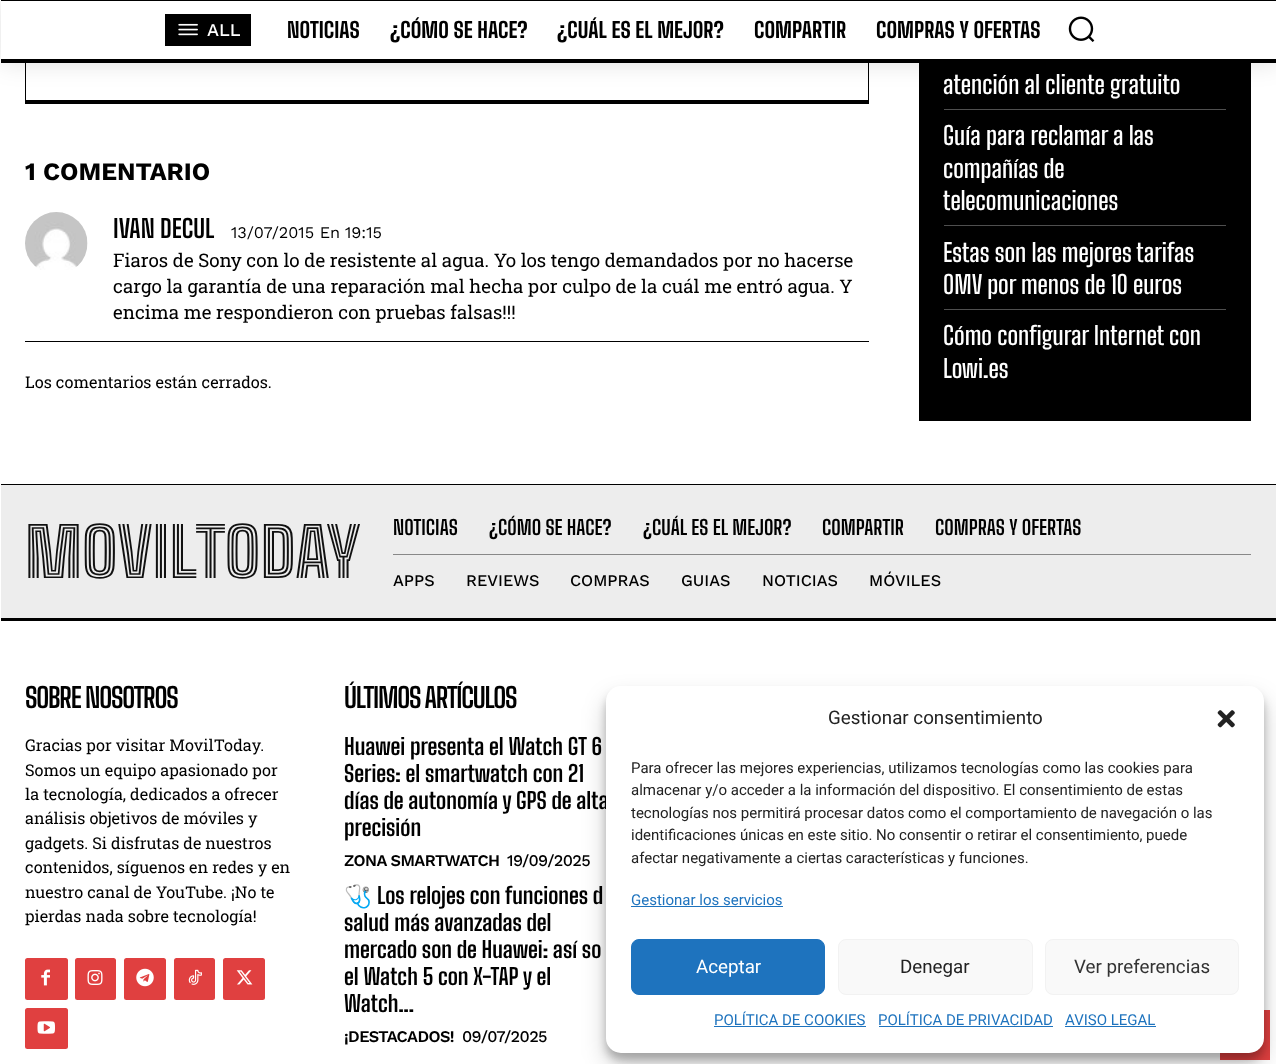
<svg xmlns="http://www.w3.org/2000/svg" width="1276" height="1064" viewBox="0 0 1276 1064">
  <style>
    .t1 { font: 500 18px Work Sans; fill: #fff; }
    .t2 { font: 800 21.25px Big Shoulders Text; fill: #000; }
    .t3 { font: bold 25px Work Sans; fill: #000; }
    .t4 { font: bold 25px Big Shoulders Text; fill: #000; }
    .t5 { font: 16.25px Work Sans; fill: #000; }
    .t6 { font: 18.75px Roboto Slab; fill: #000; }
    .t7 { font: 16.25px Roboto Slab; fill: #000; }
    .t8 { font: 600 25px Big Shoulders Text; fill: #fff; }
    .t9 { font: 900 67.5px Big Shoulders Inline Text; fill: #111; }
    .t10 { font: bold 20px Big Shoulders Text; fill: #000; }
    .t11 { font: 500 16.25px Work Sans; fill: #000; }
    .t12 { font: bold 27.5px Big Shoulders Text; letter-spacing: -1.25px; fill: #000; }
    .t13 { font: bold 22.5px Big Shoulders Text; fill: #000; }
    .t14 { font: 600 16.25px Work Sans; letter-spacing: -0.6px; fill: #000; }
    .t15 { font: 500 16.25px Work Sans; letter-spacing: -0.6px; fill: #000; }
    .t16 { font: bold 22.5px Noto Color Emoji; fill: #000; }
    .t17 { font: 18.75px Roboto; fill: #222; }
    .t18 { font: 15px Roboto; fill: #222; }
    .t19 { font: 15px Roboto; fill: #1e73be; }
    .t20 { font: 18.75px Roboto; fill: #fff; }
    .t21 { font: 18.75px Roboto; fill: #333; }
  </style>
  <defs>
    <clipPath id="clip1"><path d="M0 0H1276V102H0ZM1 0H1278V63H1Z" clip-rule="evenodd"/></clipPath>
  </defs>
  <rect width="100%" height="100%" fill="#fff"/>
  <rect x="1" y="0" width="1275" height="1" fill="#000"/>
  <rect x="1" y="59" width="1275" height="4" fill="#000"/>
  <rect x="165" y="14" width="86" height="32" fill="#000"/>
  <image x="178" y="23" width="20" height="13" href="images/1.png"/>
  <rect x="868" y="63" width="1" height="41" fill="#000"/>
  <rect x="25" y="100" width="844" height="4" fill="#000"/>
  <rect x="25" y="63" width="1" height="41" fill="#000"/>
  <rect x="919" y="63" width="332" height="358" fill="#000"/>
  <g clip-path="url(#clip1)">
    <rect x="1" y="0" width="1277" height="63" fill="#0000001f" filter="blur(12.5px)"/>
  </g>
  <text x="207" y="36" class="t1">ALL</text>
  <text x="287" y="38" class="t2">NOTICIAS</text>
  <text x="390" y="38" class="t2">¿CÓMO SE HACE?</text>
  <text x="557" y="38" class="t2">¿CUÁL ES EL MEJOR?</text>
  <text x="754" y="38" class="t2">COMPARTIR</text>
  <text x="876" y="38" class="t2">COMPRAS Y OFERTAS</text>
  <image x="1068" y="16" width="27" height="26" href="images/2.png"/>
  <text x="25" y="180" class="t3">1 COMENTARIO</text>
  <rect x="25" y="341" width="844" height="1" fill="#000"/>
  <image x="25" y="212" width="63" height="58" href="images/3.png"/>
  <text x="113" y="238" class="t4">IVAN DECUL</text>
  <text x="231" y="238" class="t5">13/07/2015 En</text>
  <text x="345" y="238" class="t5">19:15</text>
  <text x="113" y="267" class="t6">Fiaros de Sony con lo de resistente al agua. Yo los tengo demandados por no hacerse</text>
  <text x="113" y="293" class="t6">cargo la garantía de una reparación mal hecha por culpo de la cuál me entró agua. Y</text>
  <text x="113" y="319" class="t6">encima me respondieron con pruebas falsas!!!</text>
  <text x="25" y="388" class="t7">Los comentarios están cerrados.</text>
  <text x="943" y="94" class="t8">atención al cliente gratuito</text>
  <rect x="944" y="109" width="282" height="1" fill="#4f4f4f"/>
  <text x="943" y="145" class="t8">Guía para reclamar a las</text>
  <text x="943" y="178" class="t8">compañías de</text>
  <text x="943" y="210" class="t8">telecomunicaciones</text>
  <rect x="944" y="225" width="282" height="1" fill="#4f4f4f"/>
  <text x="943" y="262" class="t8">Estas son las mejores tarifas</text>
  <text x="943" y="294" class="t8">OMV por menos de 10 euros</text>
  <rect x="944" y="309" width="282" height="1" fill="#4f4f4f"/>
  <text x="943" y="345" class="t8">Cómo configurar Internet con</text>
  <text x="943" y="378" class="t8">Lowi.es</text>
  <rect x="1" y="485" width="1275" height="133" fill="#ededed"/>
  <rect x="1" y="484" width="1275" height="1" fill="#000"/>
  <rect x="1" y="618" width="1275" height="3" fill="#000"/>
  <text x="25" y="578" class="t9">MOVILTODAY</text>
  <rect x="393" y="554" width="858" height="1" fill="#888"/>
  <text x="393" y="535" class="t10">NOTICIAS</text>
  <text x="489" y="535" class="t10">¿CÓMO SE HACE?</text>
  <text x="643" y="535" class="t10">¿CUÁL ES EL MEJOR?</text>
  <text x="822" y="535" class="t10">COMPARTIR</text>
  <text x="935" y="535" class="t10">COMPRAS Y OFERTAS</text>
  <text x="393" y="586" class="t11">APPS</text>
  <text x="466" y="586" class="t11">REVIEWS</text>
  <text x="570" y="586" class="t11">COMPRAS</text>
  <text x="681" y="586" class="t11">GUIAS</text>
  <text x="762" y="586" class="t11">NOTICIAS</text>
  <text x="869" y="586" class="t11">MÓVILES</text>
  <text x="25" y="708" class="t12">SOBRE NOSOTROS</text>
  <text x="25" y="751" class="t7">Gracias por visitar MovilToday.</text>
  <text x="25" y="776" class="t7">Somos un equipo apasionado por</text>
  <text x="25" y="800" class="t7">la tecnología, dedicados a ofrecer</text>
  <text x="25" y="824" class="t7">análisis objetivos de móviles y</text>
  <text x="25" y="849" class="t7">gadgets. Si disfrutas de nuestros</text>
  <text x="25" y="873" class="t7">contenidos, síguenos en redes y en</text>
  <text x="25" y="898" class="t7">nuestro canal de YouTube. ¡No te</text>
  <text x="25" y="922" class="t7">pierdas nada sobre tecnología!</text>
  <rect x="25" y="958" width="43" height="42" rx="2.5" fill="#e04040"/>
  <image x="41" y="969" width="9" height="17" href="images/4.png"/>
  <rect x="75" y="958" width="41" height="42" rx="2.5" fill="#e04040"/>
  <image x="87" y="970" width="16" height="15" href="images/5.png"/>
  <rect x="124" y="958" width="42" height="42" rx="2.5" fill="#e04040"/>
  <image x="136" y="968" width="18" height="19" href="images/6.png"/>
  <rect x="174" y="958" width="41" height="42" rx="2.5" fill="#e04040"/>
  <image x="188" y="969" width="14" height="16" href="images/7.png"/>
  <rect x="223" y="958" width="42" height="42" rx="2.5" fill="#e04040"/>
  <image x="236" y="970" width="17" height="15" href="images/8.png"/>
  <rect x="25" y="1008" width="43" height="41" rx="2.5" fill="#e04040"/>
  <image x="37" y="1021" width="18" height="13" href="images/9.png"/>
  <text x="344" y="708" class="t12">ÚLTIMOS ARTÍCULOS</text>
  <text x="344" y="755" class="t13">Huawei presenta el Watch GT 6</text>
  <text x="344" y="782" class="t13">Series: el smartwatch con 21</text>
  <text x="344" y="809" class="t13">días de autonomía y GPS de alta</text>
  <text x="344" y="836" class="t13">precisión</text>
  <text x="344" y="866" class="t14">ZONA SMARTWATCH</text>
  <text x="507" y="866" class="t15">19/09/2025</text>
  <text x="344" y="904" class="t16">🩺</text>
  <text x="377" y="904" class="t13">Los relojes con funciones d</text>
  <text x="344" y="931" class="t13">salud más avanzadas del</text>
  <text x="344" y="958" class="t13">mercado son de Huawei: así so</text>
  <text x="344" y="985" class="t13">el Watch 5 con X-TAP y el</text>
  <text x="344" y="1012" class="t13">Watch...</text>
  <text x="344" y="1042" class="t14">¡DESTACADOS!</text>
  <text x="462" y="1042" class="t15">09/07/2025</text>
  <rect x="1220" y="1010" width="50" height="50" fill="#e04040"/>
  <rect x="606" y="694" width="658" height="366" rx="15" fill="#0000003b" filter="blur(4px)"/>
  <rect x="606" y="699" width="658" height="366" rx="15" fill="#00000030" filter="blur(12.5px)"/>
  <rect x="606" y="686" width="658" height="367" rx="15" fill="#fff"/>
  <text x="828" y="724" class="t17">Gestionar consentimiento</text>
  <image x="1217" y="710" width="18" height="18" href="images/10.png"/>
  <text x="631" y="773" class="t18">Para ofrecer las mejores experiencias, utilizamos tecnologías como las cookies para</text>
  <text x="631" y="795" class="t18">almacenar y/o acceder a la información del dispositivo. El consentimiento de estas</text>
  <text x="631" y="818" class="t18">tecnologías nos permitirá procesar datos como el comportamiento de navegación o las</text>
  <text x="631" y="840" class="t18">identificaciones únicas en este sitio. No consentir o retirar el consentimiento, puede</text>
  <text x="631" y="863" class="t18">afectar negativamente a ciertas características y funciones.</text>
  <text x="631" y="905" class="t19">Gestionar los servicios</text>
  <rect x="631" y="906" width="152" height="1" fill="#1e73be"/>
  <rect x="631.5" y="939.5" width="193" height="55" rx="7.5" fill="#1e73be" stroke="#1e73be"/>
  <text x="696" y="973" class="t20">Aceptar</text>
  <rect x="838.5" y="939.5" width="194" height="55" rx="7.5" fill="#f9f9f9" stroke="#f2f2f2"/>
  <text x="900" y="973" class="t17">Denegar</text>
  <rect x="1045.5" y="939.5" width="193" height="55" rx="7.5" fill="#f9f9f9" stroke="#f2f2f2"/>
  <text x="1074" y="973" class="t21">Ver preferencias</text>
  <text x="714" y="1025" class="t19">POLÍTICA DE COOKIES</text>
  <rect x="714" y="1026" width="152" height="1" fill="#1e73be"/>
  <text x="878" y="1025" class="t19">POLÍTICA DE PRIVACIDAD</text>
  <rect x="879" y="1026" width="174" height="1" fill="#1e73be"/>
  <text x="1065" y="1025" class="t19">AVISO LEGAL</text>
  <rect x="1065" y="1026" width="91" height="1" fill="#1e73be"/>
</svg>
